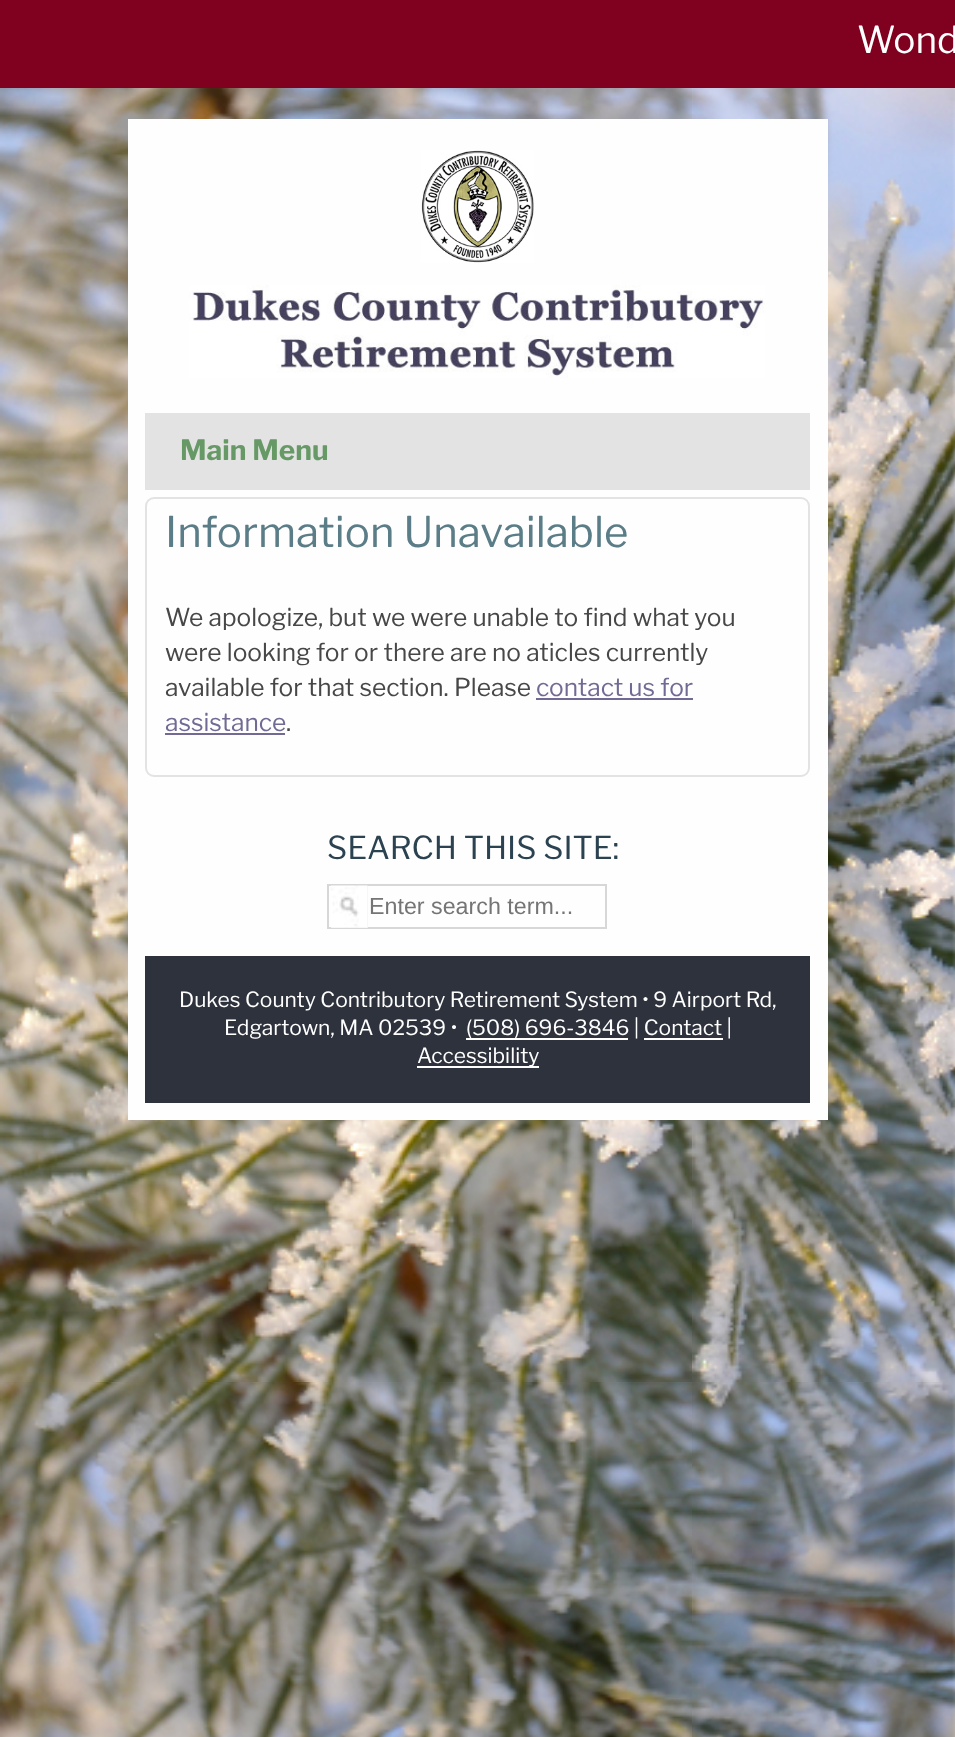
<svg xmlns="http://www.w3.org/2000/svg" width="955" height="1737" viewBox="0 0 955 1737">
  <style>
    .t1 { font: 37px Libre Franklin; fill: #fff; }
    .t2 { font: bold 28px Libre Franklin; fill: #696; }
    .t3 { font: 42px Libre Franklin; fill: #5b7d87; }
    .t4 { font: 24.5px Libre Franklin; fill: #474747; }
    .t5 { font: 24.5px Libre Franklin; fill: #726a95; }
    .t6 { font: 31.5px Libre Franklin; fill: #2b4251; }
    .t7 { font: 23.25px Liberation Sans; fill: #757575; }
    .t8 { font: 21px Libre Franklin; fill: #fff; }
  </style>
  <rect width="100%" height="100%" fill="#fff"/>
  <image x="0" y="88" width="955" height="1649" href="images/1.png"/>
  <rect x="0" y="0" width="955" height="88" fill="#800020"/>
  <text x="857" y="53" class="t1">Wond</text>
  <rect x="128" y="119" width="700" height="1001" fill="#fffefe"/>
  <image x="421" y="150" width="113" height="113" href="images/2.png"/>
  <image x="189" y="285" width="576" height="93" href="images/3.png"/>
  <rect x="145" y="413" width="665" height="77" fill="#e3e3e3"/>
  <text x="180" y="460" class="t2">Main Menu</text>
  <rect x="146" y="498" width="663" height="278" rx="8" fill="none" stroke="#e3e3e3" stroke-width="2"/>
  <text x="165" y="547" class="t3">Information Unavailable</text>
  <text x="165" y="626" class="t4">We apologize, but we were unable to find what you</text>
  <text x="165" y="661" class="t4">were looking for or there are no aticles currently</text>
  <text x="165" y="696" class="t4">available for that section. Please</text>
  <text x="536" y="696" class="t5">contact us for</text>
  <rect x="536" y="698" width="157" height="2" fill="#726a95"/>
  <text x="165" y="731" class="t5">assistance</text>
  <rect x="165" y="733" width="120" height="2" fill="#726a95"/>
  <text x="286" y="731" class="t4">.</text>
  <text x="327" y="859" class="t6">SEARCH THIS SITE:</text>
  <rect x="328" y="885" width="278" height="43" fill="none" stroke="#d7d7d7" stroke-width="2"/>
  <rect x="331" y="886" width="37" height="42" fill="#efefef"/>
  <image x="330" y="885" width="38" height="43" href="images/4.png"/>
  <text x="369" y="914" class="t7">Enter search term...</text>
  <rect x="145" y="956" width="665" height="147" fill="#2e323c"/>
  <text x="179" y="1007" class="t8">Dukes County Contributory Retirement System • 9 Airport Rd,</text>
  <text x="224" y="1035" class="t8">Edgartown, MA 02539 •</text>
  <rect x="466" y="1038" width="162" height="2" fill="#fff"/>
  <text x="466" y="1035" class="t8">(508) 696-3846 | Contact |</text>
  <rect x="644" y="1038" width="79" height="2" fill="#fff"/>
  <rect x="417" y="1066" width="122" height="2" fill="#fff"/>
  <text x="417" y="1063" class="t8">Accessibility</text>
</svg>
